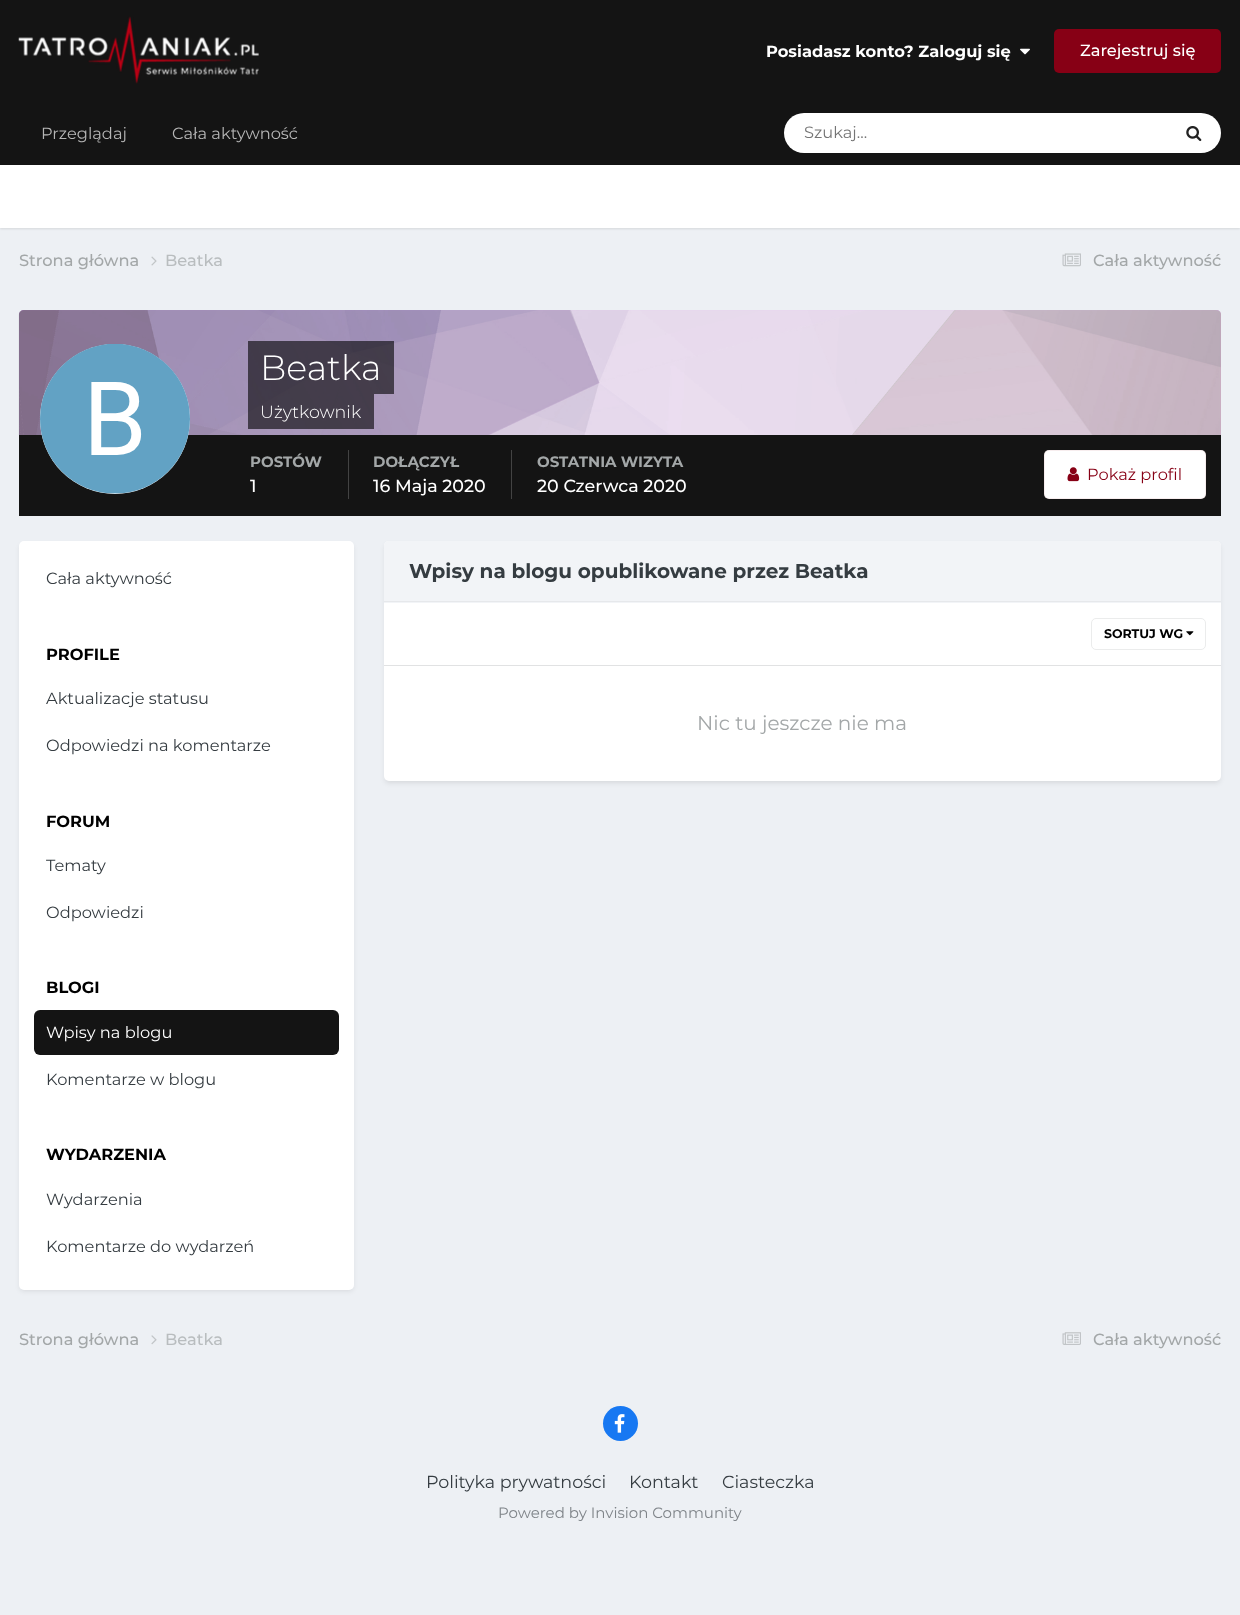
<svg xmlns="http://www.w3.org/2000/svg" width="1240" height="1615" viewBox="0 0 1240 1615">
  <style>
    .t1 { font: bold 16.25px Montserrat; fill: #fff; }
    .t2 { font: 500 16.25px Montserrat; fill: #fff; }
    .t3 { font: 16.25px Montserrat; fill: #b6b6b6; }
    .t4 { font: 16.25px Montserrat; fill: #757575; }
    .t5 { font: 500 16.25px Montserrat; fill: #a3a7a8; }
    .t6 { font: 500 16.25px Montserrat; fill: #b9bdbf; }
    .t7 { font: 300 35px Montserrat; fill: #fff; }
    .t8 { font: 300 17.5px Montserrat; fill: #fff; }
    .t9 { font: bold 15px Montserrat; fill: #a3a7a8; }
    .t10 { font: 500 17.5px Montserrat; fill: #fff; }
    .t11 { font: 16.25px Montserrat; fill: #870015; }
    .t12 { font: 16.25px Montserrat; fill: #353c41; }
    .t13 { font: bold 16.25px Montserrat; fill: #000; }
    .t14 { font: 16.25px Montserrat; fill: #fff; }
    .t15 { font: bold 20px Montserrat; fill: #353c41; }
    .t16 { font: bold 12.5px Montserrat; fill: #000; }
    .t17 { font: 20px Montserrat; fill: #a3a7a8; }
    .t18 { font: 17.5px Montserrat; fill: #353c41; }
    .t19 { font: 15px Montserrat; fill: #7f8489; }
  </style>
  <rect width="100%" height="100%" fill="#edf0f4"/>
  <rect x="0" y="0" width="1240" height="165" fill="#141414"/>
  <image x="18" y="16" width="241" height="68" href="images/1.png"/>
  <text x="766" y="57" class="t1">Posiadasz konto? Zaloguj się</text>
  <image x="1020" y="48" width="10" height="7" href="images/2.png"/>
  <rect x="1054" y="29" width="167" height="44" rx="5" fill="#870015"/>
  <text x="1080" y="56" class="t2">Zarejestruj się</text>
  <text x="41" y="139" class="t3">Przeglądaj</text>
  <text x="172" y="139" class="t3">Cała aktywność</text>
  <rect x="784" y="113" width="437" height="40" rx="20" fill="#fff"/>
  <text x="804" y="138" class="t4">Szukaj...</text>
  <image x="1186" y="126" width="16" height="16" href="images/3.png"/>
  <rect x="0" y="166" width="1240" height="63" fill="#0000001a" filter="blur(1px)"/>
  <rect x="0" y="165" width="1240" height="63" fill="#fff"/>
  <text x="19" y="266" class="t5">Strona główna</text>
  <image x="151" y="256" width="6" height="10" href="images/4.png"/>
  <text x="165" y="266" class="t6">Beatka</text>
  <image x="1062" y="253" width="19" height="14" href="images/5.png"/>
  <text x="1093" y="266" class="t5">Cała aktywność</text>
  <path d="M24 310H1216C1219 310 1221 312 1221 315V435H19V315C19 312 21 310 24 310Z" fill="#e499ff"/>
  <image x="18" y="310" width="1203" height="125" href="images/6.png"/>
  <rect x="19" y="435" width="1202" height="81" fill="#141414"/>
  <circle cx="115" cy="419" r="75" fill="#fff"/>
  <image x="40" y="344" width="150" height="150" href="images/7.png"/>
  <rect x="248" y="341" width="146" height="53" fill="#00000099"/>
  <text x="260" y="380" class="t7">Beatka</text>
  <rect x="248" y="394" width="126" height="35" fill="#00000099"/>
  <text x="260" y="418" class="t8">Użytkownik</text>
  <rect x="348" y="450" width="1" height="49" fill="#434343"/>
  <text x="250" y="467" class="t9">POSTÓW</text>
  <text x="250" y="492" class="t10">1</text>
  <rect x="511" y="450" width="1" height="49" fill="#434343"/>
  <text x="373" y="467" class="t9">DOŁĄCZYŁ</text>
  <text x="373" y="492" class="t10">16 Maja 2020</text>
  <text x="537" y="467" class="t9">OSTATNIA WIZYTA</text>
  <text x="537" y="492" class="t10">20 Czerwca 2020</text>
  <rect x="1044" y="450" width="162" height="49" rx="5" fill="#fff"/>
  <rect x="1044.5" y="450.5" width="161" height="48" rx="4.5" fill="none" stroke="#87001512"/>
  <image x="1067" y="467" width="13" height="15" href="images/8.png"/>
  <text x="1087" y="480" class="t11">Pokaż profil</text>
  <rect x="20" y="545" width="333" height="746" rx="4" fill="#1414141a" filter="blur(2.5px)"/>
  <rect x="19" y="541" width="335" height="749" rx="5" fill="#fff"/>
  <text x="46" y="584" class="t12">Cała aktywność</text>
  <text x="46" y="660" class="t13">PROFILE</text>
  <text x="46" y="704" class="t12">Aktualizacje statusu</text>
  <text x="46" y="751" class="t12">Odpowiedzi na komentarze</text>
  <text x="46" y="827" class="t13">FORUM</text>
  <text x="46" y="871" class="t12">Tematy</text>
  <text x="46" y="918" class="t12">Odpowiedzi</text>
  <text x="46" y="993" class="t13">BLOGI</text>
  <rect x="34" y="1010" width="305" height="45" rx="6" fill="#141414"/>
  <text x="46" y="1038" class="t14">Wpisy na blogu</text>
  <text x="46" y="1085" class="t12">Komentarze w blogu</text>
  <text x="46" y="1160" class="t13">WYDARZENIA</text>
  <text x="46" y="1205" class="t12">Wydarzenia</text>
  <text x="46" y="1252" class="t12">Komentarze do wydarzeń</text>
  <rect x="385" y="545" width="835" height="238" rx="4" fill="#1414141a" filter="blur(2.5px)"/>
  <rect x="384" y="541" width="837" height="240" rx="5" fill="#fff"/>
  <path d="M389 541H1216C1219 541 1221 543 1221 546V603H384V546C384 543 386 541 389 541Z" fill="#f2f4f7"/>
  <rect x="384" y="601" width="837" height="1" fill="#e6e8eb"/>
  <text x="409" y="578" class="t15">Wpisy na blogu opublikowane przez Beatka</text>
  <rect x="384" y="665" width="837" height="1" fill="#e1e2e3"/>
  <image x="1186" y="631" width="8" height="5" href="images/9.png"/>
  <rect x="1091.5" y="618.5" width="114" height="31" rx="4.5" fill="none" stroke="#ebecec"/>
  <text x="1104" y="638" class="t16">SORTUJ WG</text>
  <text x="697" y="730" class="t17">Nic tu jeszcze nie ma</text>
  <text x="19" y="1345" class="t5">Strona główna</text>
  <image x="151" y="1335" width="6" height="10" href="images/10.png"/>
  <text x="165" y="1345" class="t6">Beatka</text>
  <image x="1062" y="1332" width="19" height="13" href="images/11.png"/>
  <text x="1093" y="1345" class="t5">Cała aktywność</text>
  <circle cx="620.5" cy="1423.5" r="17.5" fill="#1778f2"/>
  <image x="614" y="1414" width="11" height="19" href="images/12.png"/>
  <text x="426" y="1488" class="t18">Polityka prywatności</text>
  <text x="629" y="1488" class="t18">Kontakt</text>
  <text x="722" y="1488" class="t18">Ciasteczka</text>
  <text x="498" y="1518" class="t19">Powered by Invision Community</text>
</svg>
